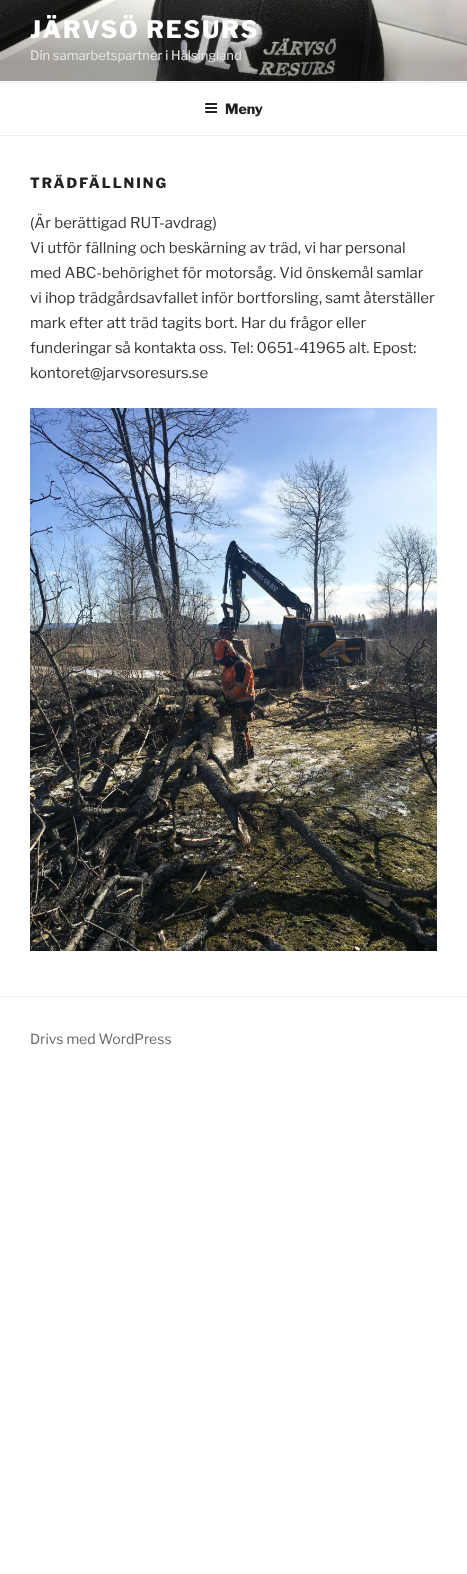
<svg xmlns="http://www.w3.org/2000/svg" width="467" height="1574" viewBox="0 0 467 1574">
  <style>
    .t1 { font: 100 24px Libre Franklin; letter-spacing: 1.9px; fill: #fff; }
    .t2 { font: 100 13px 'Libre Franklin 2'; fill: #e8e8e7; }
    .t3 { font: 100 14px Libre Franklin; fill: #222; }
    .t4 { font: 100 14px Libre Franklin; letter-spacing: 2px; fill: #222; }
    .t5 { font: 100 15px 'Libre Franklin 2'; fill: #333; }
    .t6 { font: 100 14px 'Libre Franklin 2'; fill: #666; }
  </style>
  <rect width="100%" height="100%" fill="#fff"/>
  <rect x="0" y="81" width="467" height="1" fill="#fafafa"/>
  <image x="0" y="0" width="467" height="81" href="images/1.png"/>
  <text x="30" y="38" class="t1">JÄRVSÖ RESURS</text>
  <text x="30" y="60" class="t2">Din samarbetspartner i Hälsingland</text>
  <rect x="0" y="82" width="467" height="1" fill="#eee"/>
  <rect x="0" y="135" width="467" height="1" fill="#eee"/>
  <image x="205" y="103" width="13" height="10" href="images/2.png"/>
  <text x="225" y="114" class="t3">Meny</text>
  <text x="30" y="188" class="t4">TRÄDFÄLLNING</text>
  <text x="30" y="228" class="t5">(Är berättigad RUT-avdrag)</text>
  <text x="30" y="253" class="t5">Vi utför fällning och beskärning av träd, vi har personal</text>
  <text x="30" y="278" class="t5">med ABC-behörighet för motorsåg. Vid önskemål samlar</text>
  <text x="30" y="303" class="t5">vi ihop trädgårdsavfallet inför bortforsling, samt återställer</text>
  <text x="30" y="328" class="t5">mark efter att träd tagits bort. Har du frågor eller</text>
  <text x="30" y="353" class="t5">funderingar så kontakta oss. Tel: 0651-41965 alt. Epost:</text>
  <text x="30" y="378" class="t5">kontoret@jarvsoresurs.se</text>
  <image x="30" y="408" width="407" height="543" href="images/3.png"/>
  <rect x="0" y="996" width="467" height="1" fill="#eee"/>
  <text x="30" y="1044" class="t6">Drivs med WordPress</text>
</svg>
